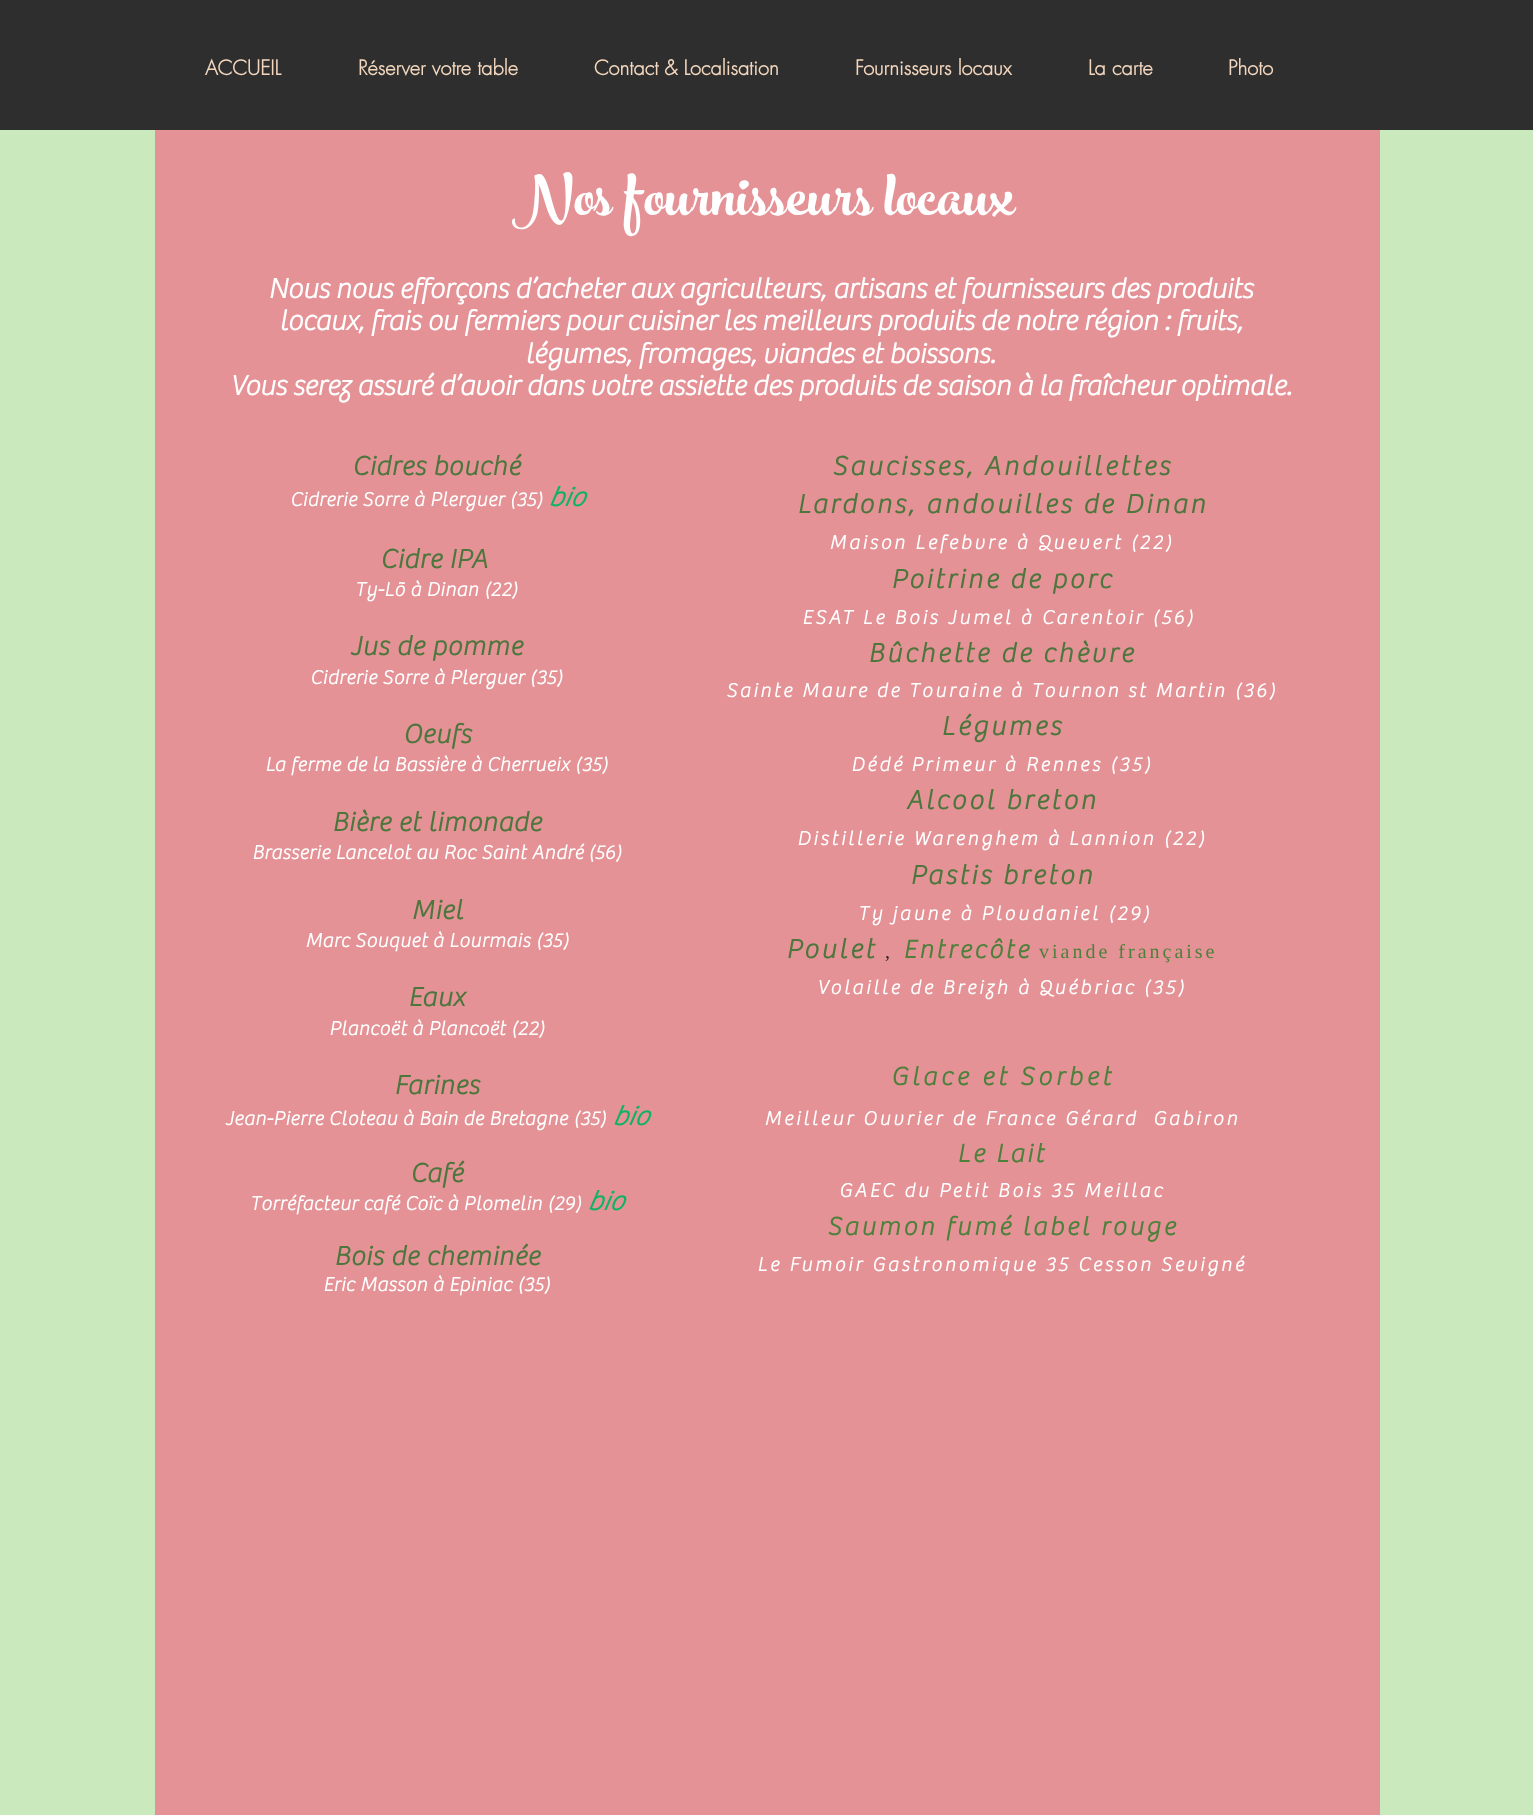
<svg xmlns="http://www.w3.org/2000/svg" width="1533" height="1815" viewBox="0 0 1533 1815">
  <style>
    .t1 { font: bold 20px futura; fill: #f2d6bd; }
    .t2 { font: 87.5px 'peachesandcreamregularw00'; letter-spacing: 0.9px; fill: #fff; }
    .t3 { font: bold 28.75px 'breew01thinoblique'; fill: #fff; }
    .t4 { font: bold 27.5px 'breew01thinoblique'; letter-spacing: 0.8px; fill: #4d763d; }
    .t5 { font: bold 20px 'breew01thinoblique'; letter-spacing: 0.6px; fill: #fff; }
    .t6 { font: italic bold 27.5px 'breew01thinoblique'; letter-spacing: 0.6px; fill: #0eb363; }
    .t7 { font: bold 27.5px 'breew01thinoblique'; letter-spacing: 0.6px; fill: #4d763d; }
    .t8 { font: bold 27.5px 'breew01thinoblique'; letter-spacing: 3px; fill: #4d763d; }
    .t9 { font: bold 20px 'breew01thinoblique'; letter-spacing: 3px; fill: #fff; }
    .t10 { font: bold 20px 'breew01thinoblique'; letter-spacing: 2.8px; fill: #fff; }
    .t11 { font: 20px Liberation Serif; letter-spacing: 3px; fill: #242323; }
    .t12 { font: bold 26.25px 'breew01thinoblique'; letter-spacing: 3px; fill: #4e803c; }
    .t13 { font: 20px Liberation Serif; letter-spacing: 3px; fill: #4e803c; }
    .t14 { font: bold 26.25px 'breew01thinoblique'; letter-spacing: 4px; fill: #4e803c; }
    .t15 { font: bold 26.25px 'breew01thinoblique'; letter-spacing: 2.8px; fill: #4e803c; }
  </style>
  <rect width="100%" height="100%" fill="#cae9bd"/>
  <rect x="0" y="0" width="1533" height="130" fill="#2f2e2e"/>
  <text x="205" y="75" class="t1">ACCUEIL</text>
  <text x="358" y="75" class="t1">Réserver votre table</text>
  <text x="594" y="75" class="t1">Contact &amp; Localisation</text>
  <text x="855" y="75" class="t1">Fournisseurs locaux</text>
  <text x="1088" y="75" class="t1">La carte</text>
  <text x="1228" y="75" class="t1">Photo</text>
  <rect x="155" y="130" width="1225" height="1685" fill="#e49296"/>
  <text x="512" y="215" class="t2">Nos fournisseurs locaux</text>
  <text x="268" y="298" class="t3">Nous nous efforçons d’acheter aux agriculteurs, artisans et fournisseurs des produits</text>
  <text x="279" y="330" class="t3">locaux, frais ou fermiers pour cuisiner les meilleurs produits de notre région : fruits,</text>
  <text x="525" y="363" class="t3">légumes, fromages, viandes et boissons.</text>
  <text x="230" y="395" class="t3">Vous serez assuré d’avoir dans votre assiette des produits de saison à la fraîcheur optimale.</text>
  <text x="352" y="475" class="t4">Cidres bouché</text>
  <text x="290" y="506" class="t5">Cidrerie Sorre à Plerguer (35)</text>
  <text x="548" y="506" class="t6">bio</text>
  <text x="380" y="568" class="t4">Cidre IPA</text>
  <text x="355" y="596" class="t5">Ty-Lõ à Dinan (22)</text>
  <text x="350" y="655" class="t4">Jus de pomme</text>
  <text x="310" y="684" class="t5">Cidrerie Sorre à Plerguer (35)</text>
  <text x="403" y="743" class="t4">Oeufs</text>
  <text x="265" y="771" class="t5">La ferme de la Bassière à Cherrueix (35)</text>
  <text x="332" y="831" class="t4">Bière et limonade</text>
  <text x="252" y="859" class="t5">Brasserie Lancelot au Roc Saint André</text>
  <text x="588" y="859" class="t5">(56)</text>
  <text x="411" y="919" class="t4">Miel</text>
  <text x="305" y="947" class="t5">Marc Souquet à Lourmais (35)</text>
  <text x="408" y="1006" class="t4">Eaux</text>
  <text x="329" y="1035" class="t5">Plancoët à Plancoët (22)</text>
  <text x="394" y="1094" class="t4">Farines</text>
  <text x="225" y="1125" class="t5">Jean-Pierre Cloteau à Bain de Bretagne (35)</text>
  <text x="612" y="1125" class="t6">bio</text>
  <text x="410" y="1182" class="t7">Café</text>
  <text x="250" y="1210" class="t5">Torréfacteur café Coïc à Plomelin (29)</text>
  <text x="587" y="1210" class="t6">bio</text>
  <text x="334" y="1265" class="t4">Bois de cheminée</text>
  <text x="323" y="1291" class="t5">Eric Masson à Epiniac (35)</text>
  <text x="832" y="475" class="t8">Saucisses, Andouillettes</text>
  <text x="797" y="513" class="t8">Lardons, andouilles de Dinan</text>
  <text x="829" y="549" class="t9">Maison Lefebvre à Quevert (22)</text>
  <text x="891" y="588" class="t8">Poitrine de porc</text>
  <text x="802" y="624" class="t9">ESAT Le Bois Jumel à Carentoir (56)</text>
  <text x="868" y="662" class="t8">Bûchette de chèvre</text>
  <text x="726" y="697" class="t10">Sainte Maure de Touraine à Tournon st Martin (36)</text>
  <text x="941" y="735" class="t8">Légumes</text>
  <text x="851" y="771" class="t9">Dédé</text>
  <text x="911" y="771" class="t9">Primeur à Rennes (35)</text>
  <text x="906" y="809" class="t8">Alcool breton</text>
  <text x="797" y="845" class="t9">Distillerie Warenghem à Lannion (22)</text>
  <text x="910" y="884" class="t8">Pastis breton</text>
  <text x="858" y="920" class="t9">Ty jaune à Ploudaniel (29)</text>
  <text x="786" y="958" class="t8">Poulet</text>
  <text x="885" y="958" class="t11">,</text>
  <text x="903" y="958" class="t12">Entrecôte</text>
  <text x="1039" y="958" class="t13">viande française</text>
  <text x="817" y="994" class="t9">Volaille de Breizh à Québriac (35)</text>
  <text x="891" y="1085" class="t14">Glace et Sorbet</text>
  <text x="764" y="1125" class="t9">Meilleur Ouvrier de France Gérard</text>
  <text x="1153" y="1125" class="t9">Gabiron</text>
  <text x="957" y="1162" class="t15">Le Lait</text>
  <text x="839" y="1197" class="t9">GAEC du Petit Bois 35 Meillac</text>
  <text x="827" y="1235" class="t12">Saumon fumé label rouge</text>
  <text x="757" y="1271" class="t9">Le Fumoir Gastronomique 35 Cesson Sevigné</text>
</svg>
